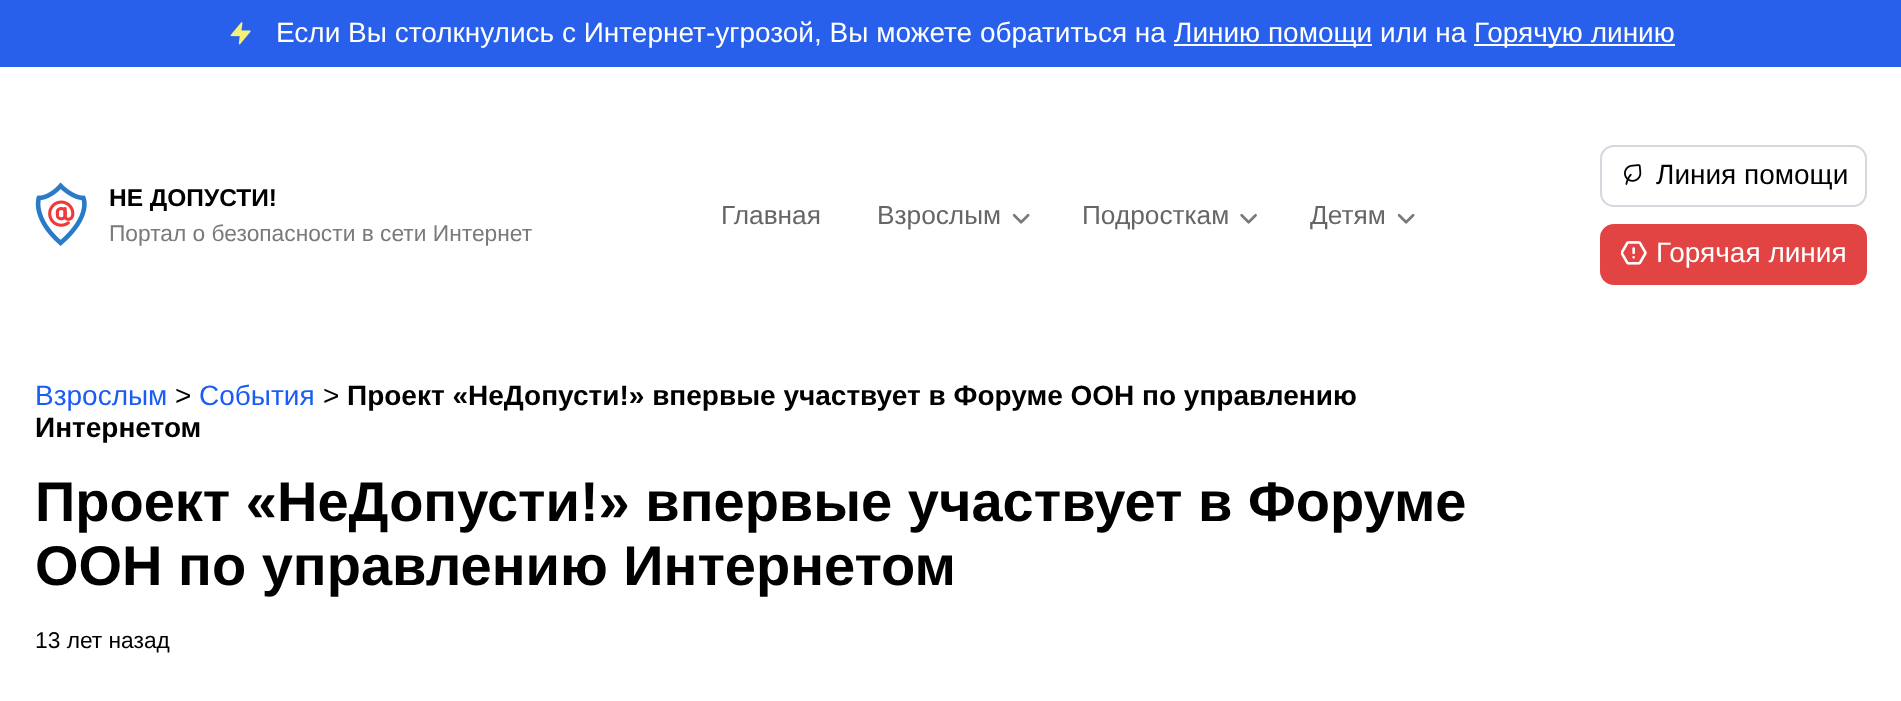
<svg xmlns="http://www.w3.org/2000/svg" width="1901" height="701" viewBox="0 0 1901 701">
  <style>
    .t1 { font: 28px Liberation Sans; fill: #fff; }
    .t2 { font: bold 24.5px Liberation Sans; fill: #000; }
    .t3 { font: 22.75px Liberation Sans; fill: #7a7a7a; }
    .t4 { font: 26.25px Liberation Sans; fill: #666; }
    .t5 { font: 28px Liberation Sans; fill: #000; }
    .t6 { font: 28px Liberation Sans; fill: #1a5cf5; }
    .t7 { font: bold 28px Liberation Sans; fill: #000; }
    .t8 { font: bold 56px Liberation Sans; fill: #000; }
    .t9 { font: 22.75px Liberation Sans; fill: #000; }
  </style>
  <rect width="100%" height="100%" fill="#fff"/>
  <rect x="0" y="0" width="1901" height="67" fill="#2860ec"/>
  <image x="230" y="22" width="21" height="23" href="images/1.png"/>
  <text x="276" y="42" class="t1">Если Вы столкнулись с Интернет-угрозой, Вы можете обратиться на</text>
  <rect x="1174" y="44" width="198" height="2" fill="#fff"/>
  <text x="1174" y="42" class="t1">Линию помощи или на</text>
  <rect x="1474" y="44" width="201" height="2" fill="#fff"/>
  <text x="1474" y="42" class="t1">Горячую линию</text>
  <image x="35" y="182" width="52" height="64" href="images/2.png"/>
  <text x="109" y="206" class="t2">НЕ ДОПУСТИ!</text>
  <text x="109" y="241" class="t3">Портал о безопасности в сети Интернет</text>
  <text x="721" y="224" class="t4">Главная</text>
  <text x="877" y="224" class="t4">Взрослым</text>
  <image x="1012" y="213" width="18" height="11" href="images/3.png"/>
  <text x="1082" y="224" class="t4">Подросткам</text>
  <image x="1240" y="213" width="17" height="11" href="images/4.png"/>
  <text x="1310" y="224" class="t4">Детям</text>
  <image x="1397" y="213" width="18" height="11" href="images/5.png"/>
  <rect x="1601" y="146" width="265" height="60" rx="13" fill="none" stroke="#d6d7de" stroke-width="2"/>
  <image x="1624" y="164" width="18" height="21" href="images/6.png"/>
  <text x="1656" y="184" class="t5">Линия помощи</text>
  <rect x="1601" y="225" width="265" height="59" rx="13" fill="#e24343" stroke="#e24343" stroke-width="2"/>
  <image x="1621" y="241" width="26" height="24" href="images/7.png"/>
  <text x="1656" y="262" class="t1">Горячая линия</text>
  <text x="35" y="405" class="t6">Взрослым</text>
  <text x="175" y="405" class="t5">&gt;</text>
  <text x="199" y="405" class="t6">События</text>
  <text x="323" y="405" class="t5">&gt;</text>
  <text x="347" y="405" class="t7">Проект «НеДопусти!» впервые участвует в Форуме ООН по управлению</text>
  <text x="35" y="437" class="t7">Интернетом</text>
  <text x="35" y="521" class="t8">Проект «НеДопусти!» впервые участвует в Форуме</text>
  <text x="35" y="585" class="t8">ООН по управлению Интернетом</text>
  <text x="35" y="648" class="t9">13 лет назад</text>
</svg>
